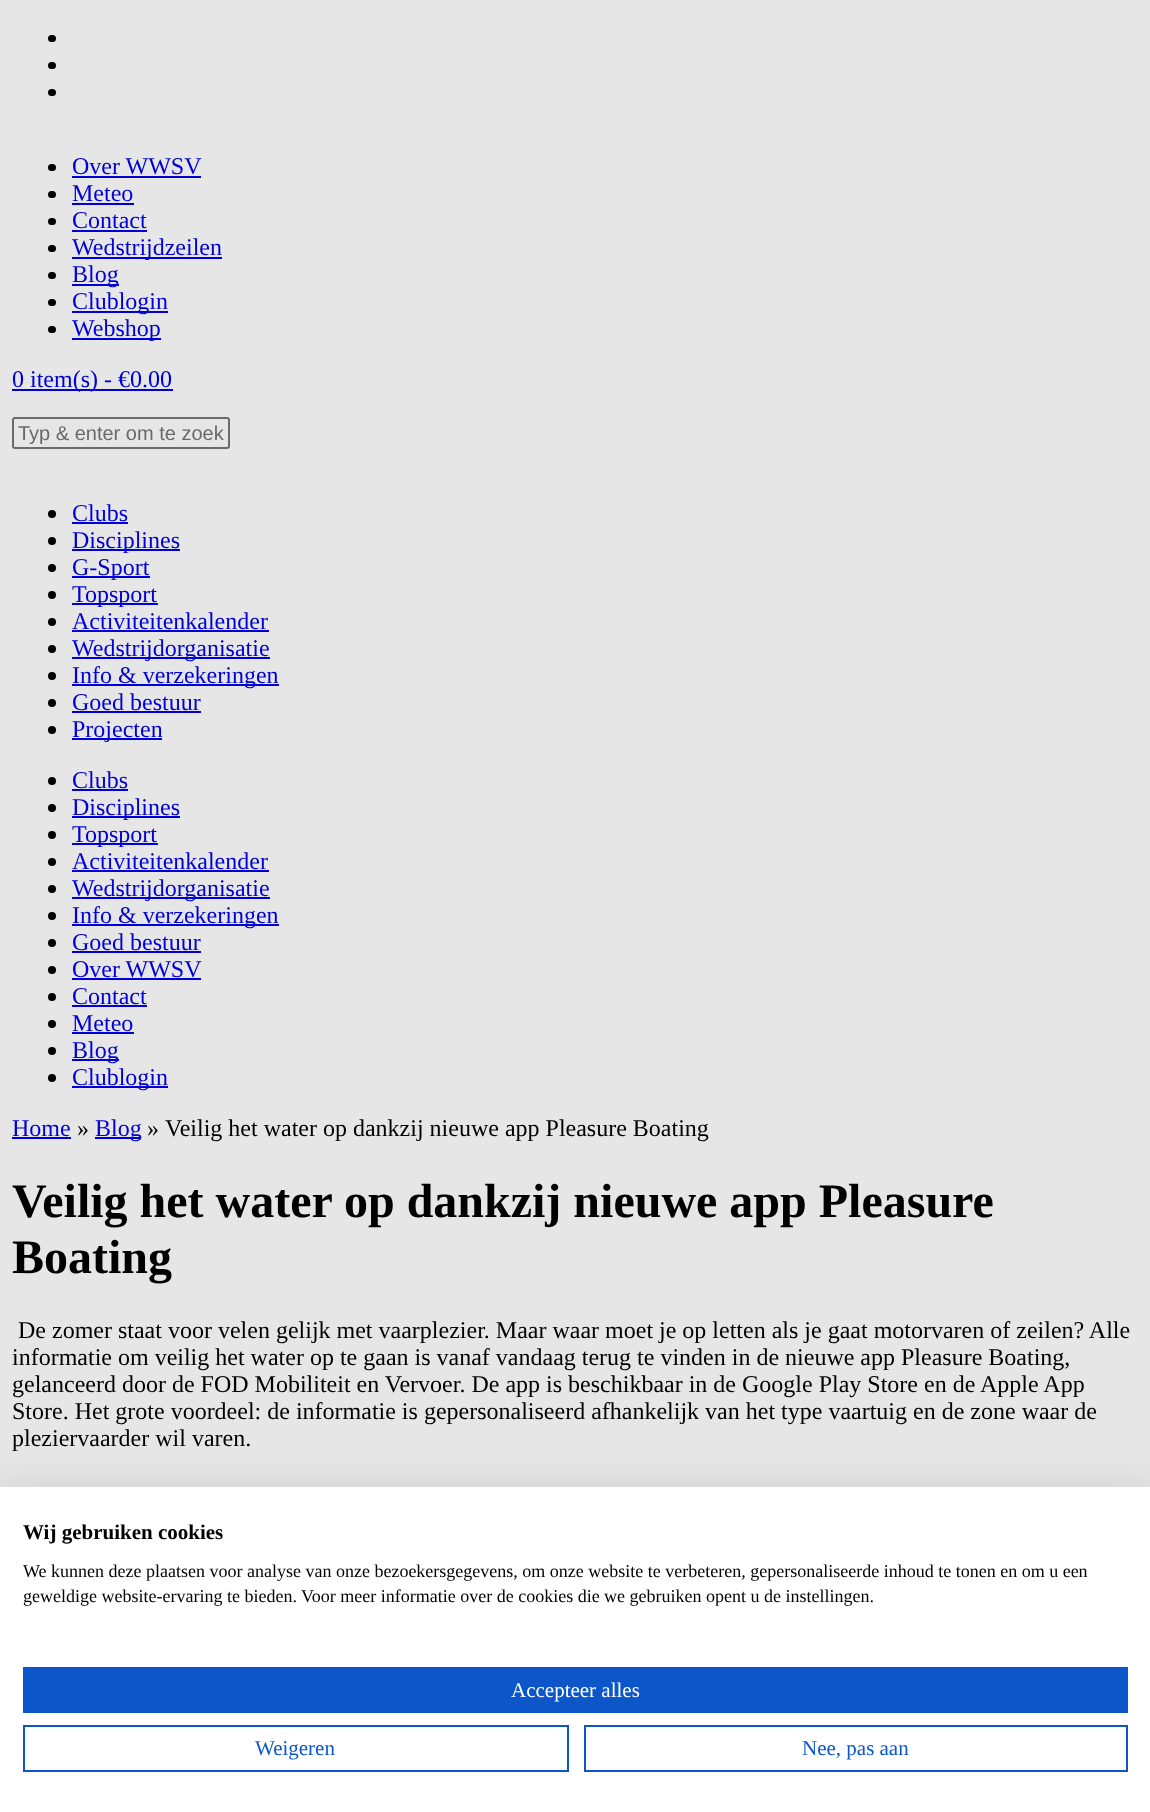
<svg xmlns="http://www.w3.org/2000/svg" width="1150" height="1812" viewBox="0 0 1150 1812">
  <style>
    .t1 { font: 24px Liberation Serif; fill: #0000d6; }
    .t2 { font: 20px Liberation Sans; fill: #696969; }
    .t3 { font: 24px Liberation Serif; fill: #000; }
    .t4 { font: bold 48px Liberation Serif; fill: #000; }
    .t5 { font: bold 21px Liberation Serif; fill: #000; }
    .t6 { font: 18px Liberation Serif; fill: #000; }
    .t7 { font: 21px Liberation Serif; fill: #fff; }
    .t8 { font: 21px Liberation Serif; fill: #0d56c9; }
  </style>
  <defs>
    <clipPath id="clip1"><rect x="18" y="422" width="206" height="22"/></clipPath>
  </defs>
  <rect width="100%" height="100%" fill="#e6e6e6"/>
  <rect x="48" y="35" width="8" height="7" rx="3.5" fill="#000"/>
  <rect x="48" y="62" width="8" height="7" rx="3.5" fill="#000"/>
  <rect x="48" y="89" width="8" height="7" rx="3.5" fill="#000"/>
  <rect x="48" y="164" width="8" height="7" rx="3.5" fill="#000"/>
  <text x="72" y="174" class="t1">Over WWSV</text>
  <rect x="72" y="176" width="129" height="2" fill="#0000d6"/>
  <rect x="48" y="191" width="8" height="7" rx="3.5" fill="#000"/>
  <text x="72" y="201" class="t1">Meteo</text>
  <rect x="72" y="203" width="62" height="2" fill="#0000d6"/>
  <rect x="48" y="218" width="8" height="7" rx="3.5" fill="#000"/>
  <text x="72" y="228" class="t1">Contact</text>
  <rect x="72" y="230" width="75" height="2" fill="#0000d6"/>
  <rect x="48" y="245" width="8" height="7" rx="3.5" fill="#000"/>
  <rect x="72" y="257" width="150" height="2" fill="#0000d6"/>
  <text x="72" y="255" class="t1">Wedstrijdzeilen</text>
  <rect x="48" y="272" width="8" height="7" rx="3.5" fill="#000"/>
  <rect x="72" y="284" width="47" height="2" fill="#0000d6"/>
  <text x="72" y="282" class="t1">Blog</text>
  <rect x="48" y="299" width="8" height="7" rx="3.5" fill="#000"/>
  <rect x="72" y="311" width="96" height="2" fill="#0000d6"/>
  <text x="72" y="309" class="t1">Clublogin</text>
  <rect x="48" y="326" width="8" height="7" rx="3.5" fill="#000"/>
  <rect x="72" y="338" width="89" height="2" fill="#0000d6"/>
  <text x="72" y="336" class="t1">Webshop</text>
  <rect x="12" y="389" width="161" height="2" fill="#0000d6"/>
  <text x="12" y="387" class="t1">0 item(s) - €0.00</text>
  <rect x="13" y="418" width="216" height="30" rx="2" fill="none" stroke="#6a6a6a" stroke-width="2"/>
  <g clip-path="url(#clip1)">
    <text x="18" y="440" class="t2">Typ &amp; enter om te zoek</text>
  </g>
  <circle cx="52" cy="514" r="4" fill="#000"/>
  <text x="72" y="521" class="t1">Clubs</text>
  <rect x="72" y="522" width="56" height="2" fill="#0000d6"/>
  <circle cx="52" cy="541" r="4" fill="#000"/>
  <rect x="72" y="549" width="108" height="2" fill="#0000d6"/>
  <text x="72" y="548" class="t1">Disciplines</text>
  <circle cx="52" cy="568" r="4" fill="#000"/>
  <rect x="72" y="576" width="78" height="2" fill="#0000d6"/>
  <text x="72" y="575" class="t1">G-Sport</text>
  <circle cx="52" cy="595" r="4" fill="#000"/>
  <rect x="72" y="603" width="86" height="2" fill="#0000d6"/>
  <text x="72" y="602" class="t1">Topsport</text>
  <circle cx="52" cy="622" r="4" fill="#000"/>
  <text x="72" y="629" class="t1">Activiteitenkalender</text>
  <rect x="72" y="630" width="197" height="2" fill="#0000d6"/>
  <circle cx="52" cy="649" r="4" fill="#000"/>
  <rect x="72" y="657" width="198" height="2" fill="#0000d6"/>
  <text x="72" y="656" class="t1">Wedstrijdorganisatie</text>
  <circle cx="52" cy="676" r="4" fill="#000"/>
  <rect x="72" y="684" width="207" height="2" fill="#0000d6"/>
  <text x="72" y="683" class="t1">Info &amp; verzekeringen</text>
  <circle cx="52" cy="703" r="4" fill="#000"/>
  <text x="72" y="710" class="t1">Goed bestuur</text>
  <rect x="72" y="711" width="129" height="2" fill="#0000d6"/>
  <circle cx="52" cy="730" r="4" fill="#000"/>
  <rect x="72" y="738" width="90" height="2" fill="#0000d6"/>
  <text x="72" y="737" class="t1">Projecten</text>
  <circle cx="52" cy="781" r="4" fill="#000"/>
  <text x="72" y="788" class="t1">Clubs</text>
  <rect x="72" y="789" width="56" height="2" fill="#0000d6"/>
  <circle cx="52" cy="808" r="4" fill="#000"/>
  <rect x="72" y="816" width="108" height="2" fill="#0000d6"/>
  <text x="72" y="815" class="t1">Disciplines</text>
  <circle cx="52" cy="835" r="4" fill="#000"/>
  <rect x="72" y="843" width="86" height="2" fill="#0000d6"/>
  <text x="72" y="842" class="t1">Topsport</text>
  <circle cx="52" cy="862" r="4" fill="#000"/>
  <text x="72" y="869" class="t1">Activiteitenkalender</text>
  <rect x="72" y="870" width="197" height="2" fill="#0000d6"/>
  <circle cx="52" cy="889" r="4" fill="#000"/>
  <rect x="72" y="897" width="198" height="2" fill="#0000d6"/>
  <text x="72" y="896" class="t1">Wedstrijdorganisatie</text>
  <circle cx="52" cy="916" r="4" fill="#000"/>
  <rect x="72" y="924" width="207" height="2" fill="#0000d6"/>
  <text x="72" y="923" class="t1">Info &amp; verzekeringen</text>
  <circle cx="52" cy="943" r="4" fill="#000"/>
  <text x="72" y="950" class="t1">Goed bestuur</text>
  <rect x="72" y="951" width="129" height="2" fill="#0000d6"/>
  <circle cx="52" cy="970" r="4" fill="#000"/>
  <text x="72" y="977" class="t1">Over WWSV</text>
  <rect x="72" y="978" width="129" height="2" fill="#0000d6"/>
  <circle cx="52" cy="997" r="4" fill="#000"/>
  <text x="72" y="1004" class="t1">Contact</text>
  <rect x="72" y="1005" width="75" height="2" fill="#0000d6"/>
  <circle cx="52" cy="1024" r="4" fill="#000"/>
  <text x="72" y="1031" class="t1">Meteo</text>
  <rect x="72" y="1032" width="62" height="2" fill="#0000d6"/>
  <circle cx="52" cy="1051" r="4" fill="#000"/>
  <rect x="72" y="1059" width="47" height="2" fill="#0000d6"/>
  <text x="72" y="1058" class="t1">Blog</text>
  <circle cx="52" cy="1078" r="4" fill="#000"/>
  <rect x="72" y="1086" width="96" height="2" fill="#0000d6"/>
  <text x="72" y="1085" class="t1">Clublogin</text>
  <text x="12" y="1136" class="t1">Home</text>
  <rect x="12" y="1137" width="59" height="2" fill="#0000d6"/>
  <text x="77" y="1136" class="t3">»</text>
  <rect x="95" y="1137" width="46" height="2" fill="#0000d6"/>
  <text x="95" y="1136" class="t1">Blog</text>
  <text x="147" y="1136" class="t3">»</text>
  <text x="165" y="1136" class="t3">Veilig het water op dankzij nieuwe app Pleasure Boating</text>
  <text x="12" y="1217" class="t4">Veilig het water op dankzij nieuwe app Pleasure</text>
  <text x="12" y="1273" class="t4">Boating</text>
  <text x="18" y="1338" class="t3">De zomer staat voor velen gelijk met vaarplezier. Maar waar moet je op letten als je gaat motorvaren of zeilen? Alle</text>
  <text x="12" y="1365" class="t3">informatie om veilig het water op te gaan is vanaf vandaag terug te vinden in de nieuwe app Pleasure Boating,</text>
  <text x="12" y="1392" class="t3">gelanceerd door de FOD Mobiliteit en Vervoer. De app is beschikbaar in de Google Play Store en de Apple App</text>
  <text x="12" y="1419" class="t3">Store. Het grote voordeel: de informatie is gepersonaliseerd afhankelijk van het type vaartuig en de zone waar de</text>
  <text x="12" y="1446" class="t3">pleziervaarder wil varen.</text>
  <rect x="0" y="1487" width="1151" height="325" fill="#0000001a" filter="blur(18px)"/>
  <rect x="0" y="1487" width="1150" height="325" fill="#fff"/>
  <text x="23" y="1539" class="t5">Wij gebruiken cookies</text>
  <text x="23" y="1577" class="t6">We kunnen deze plaatsen voor analyse van onze bezoekersgegevens, om onze website te verbeteren, gepersonaliseerde inhoud te tonen en om u een</text>
  <text x="23" y="1602" class="t6">geweldige website-ervaring te bieden. Voor meer informatie over de cookies die we gebruiken opent u de instellingen.</text>
  <rect x="23" y="1667" width="1105" height="46" fill="#0d56c9"/>
  <text x="511" y="1697" class="t7">Accepteer alles</text>
  <rect x="24" y="1726" width="544" height="45" fill="none" stroke="#0d56c9" stroke-width="2"/>
  <text x="255" y="1755" class="t8">Weigeren</text>
  <rect x="585" y="1726" width="542" height="45" fill="none" stroke="#0d56c9" stroke-width="2"/>
  <text x="802" y="1755" class="t8">Nee, pas aan</text>
</svg>
